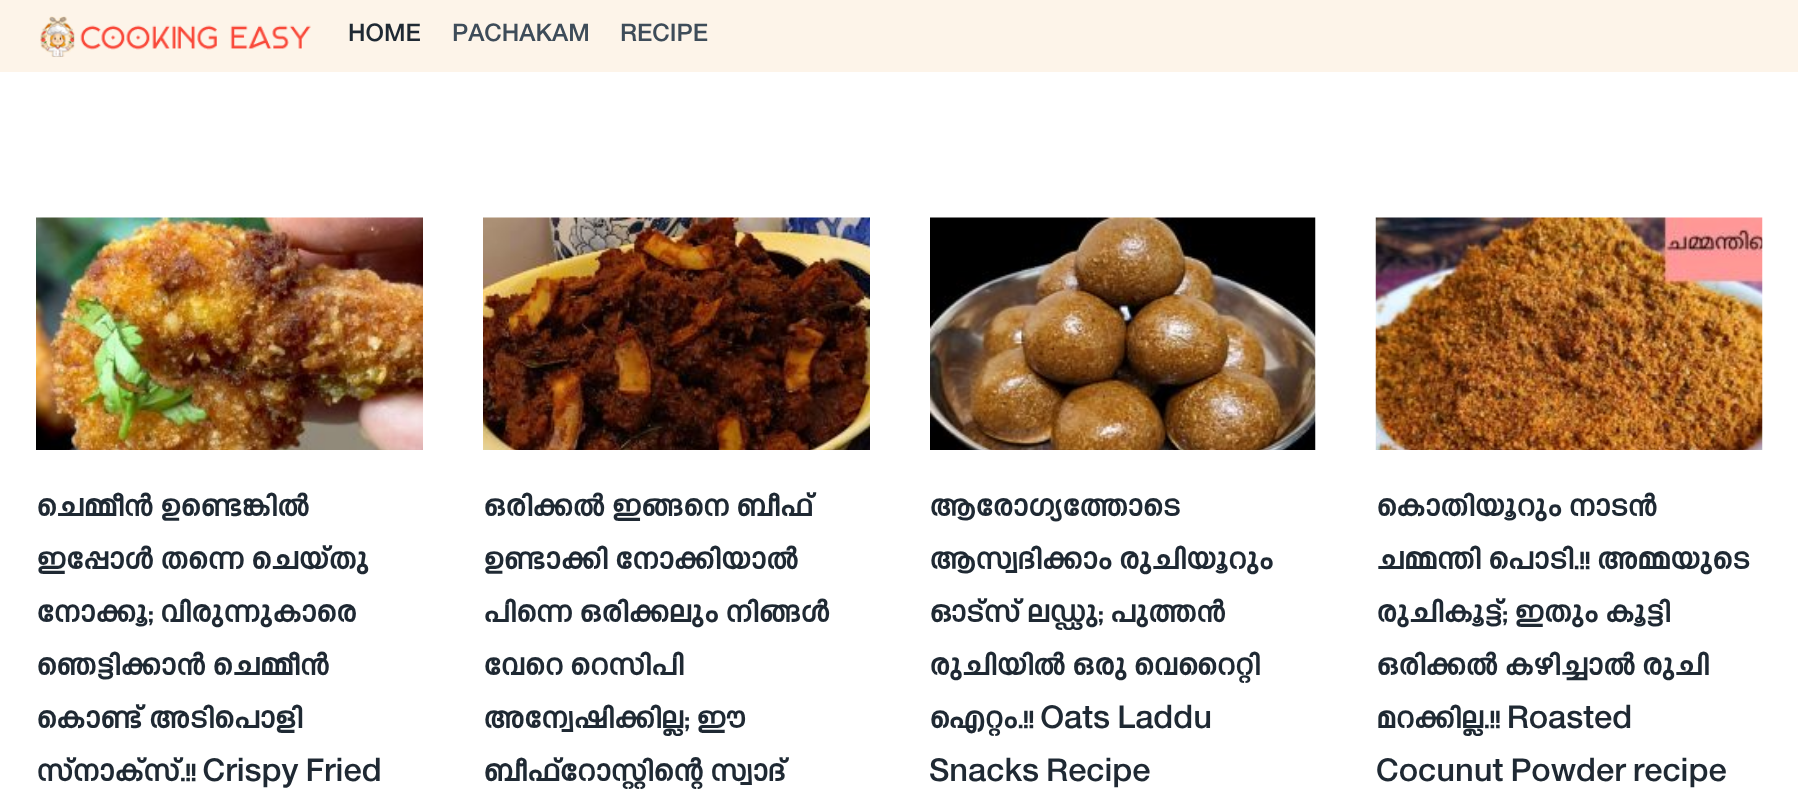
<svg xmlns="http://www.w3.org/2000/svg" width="1798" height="789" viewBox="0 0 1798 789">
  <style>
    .t1 { font: bold 25.5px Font; fill: #1f2933; }
    .t2 { font: bold 25.5px Font; fill: #3e4c59; }
    .t3 { font: bold 33.1px Font; fill: #1f2933; }
  </style>
  <rect width="100%" height="100%" fill="#fff"/>
  <rect x="0" y="0" width="1798" height="72" fill="#fdf4e9"/>
  <image x="40" y="16" width="271" height="41" href="images/1.png"/>
  <text x="348" y="41" class="t1">HOME</text>
  <text x="452" y="41" class="t2">PACHAKAM</text>
  <text x="620" y="41" class="t2">RECIPE</text>
  <image x="36" y="217" width="387" height="233" href="images/2.png"/>
  <text x="36" y="516" class="t3">ചെമ്മീൻ ഉണ്ടെങ്കിൽ</text>
  <text x="36" y="569" class="t3">ഇപ്പോൾ തന്നെ ചെയ്തു</text>
  <text x="36" y="622" class="t3">നോക്കൂ; വിരുന്നുകാരെ</text>
  <text x="36" y="675" class="t3">ഞെട്ടിക്കാൻ ചെമ്മീൻ</text>
  <text x="36" y="728" class="t3">കൊണ്ട് അടിപൊളി</text>
  <text x="36" y="781" class="t3">സ്‌നാക്‌സ്.!! Crispy Fried</text>
  <image x="483" y="217" width="387" height="233" href="images/3.png"/>
  <text x="483" y="516" class="t3">ഒരിക്കൽ ഇങ്ങനെ ബീഫ്</text>
  <text x="483" y="569" class="t3">ഉണ്ടാക്കി നോക്കിയാൽ</text>
  <text x="483" y="622" class="t3">പിന്നെ ഒരിക്കലും നിങ്ങൾ</text>
  <text x="483" y="675" class="t3">വേറെ റെസിപി</text>
  <text x="483" y="728" class="t3">അന്വേഷിക്കില്ല; ഈ</text>
  <text x="483" y="781" class="t3">ബീഫ്റോസ്റ്റിന്റെ സ്വാദ്</text>
  <image x="930" y="217" width="386" height="233" href="images/4.png"/>
  <text x="929" y="516" class="t3">ആരോഗ്യത്തോടെ</text>
  <text x="929" y="569" class="t3">ആസ്വദിക്കാം രുചിയൂറും</text>
  <text x="929" y="622" class="t3">ഓട്സ് ലഡ്ഡു; പുത്തൻ</text>
  <text x="929" y="675" class="t3">രുചിയിൽ ഒരു വെറൈറ്റി</text>
  <text x="929" y="728" class="t3">ഐറ്റം.!! Oats Laddu</text>
  <text x="929" y="781" class="t3">Snacks Recipe</text>
  <image x="1375" y="217" width="388" height="233" href="images/5.png"/>
  <text x="1376" y="516" class="t3">കൊതിയൂറും നാടൻ</text>
  <text x="1376" y="569" class="t3">ചമ്മന്തി പൊടി.!! അമ്മയുടെ</text>
  <text x="1376" y="622" class="t3">രുചികൂട്ട്; ഇതും കൂട്ടി</text>
  <text x="1376" y="675" class="t3">ഒരിക്കൽ കഴിച്ചാൽ രുചി</text>
  <text x="1376" y="728" class="t3">മറക്കില്ല.!! Roasted</text>
  <text x="1376" y="781" class="t3">Cocunut Powder recipe</text>
</svg>
